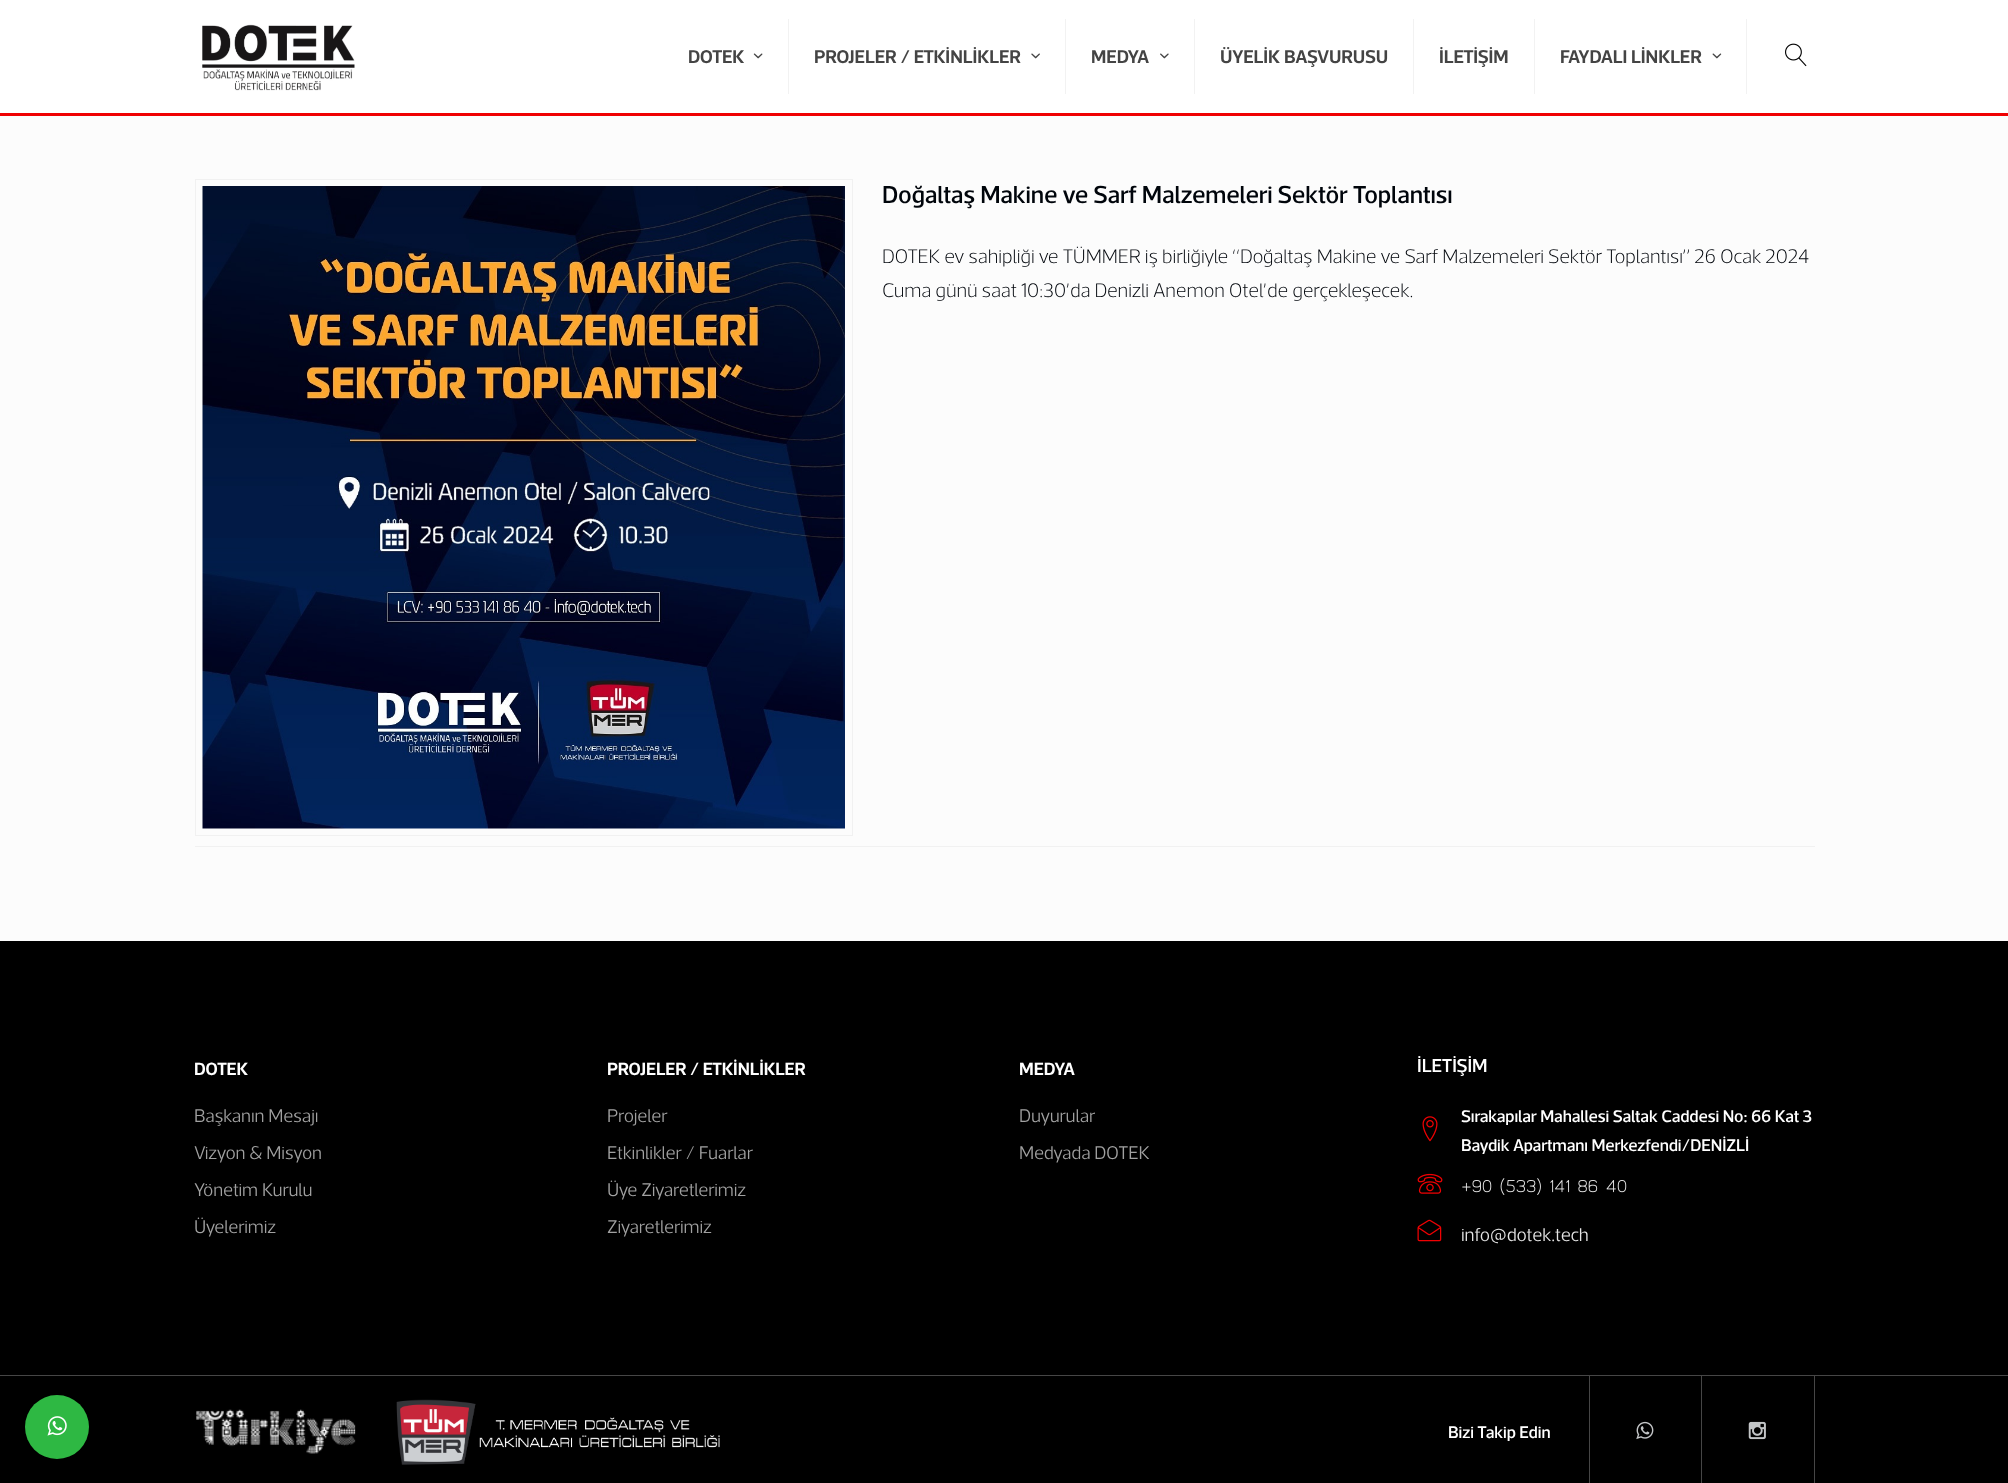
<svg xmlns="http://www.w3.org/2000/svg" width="2008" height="1483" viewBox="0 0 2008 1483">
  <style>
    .t1 { font: 600 18.75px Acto; fill: #444; }
    .t2 { font: 500 25px Acto; fill: #00050b; }
    .t3 { font: 200 20px Acto; fill: #00050b; }
    .t4 { font: 600 18px Acto; fill: #fff; }
    .t5 { font: 300 18.75px Acto; fill: #a1a1a1; }
    .t6 { font: 500 19px Acto; fill: #fff; }
    .t7 { font: 500 17.2px Acto; fill: #fff; }
    .t8 { font: 300 18.75px Acto; fill: #e6e6e6; }
  </style>
  <rect width="100%" height="100%" fill="#fcfcfc"/>
  <rect x="0" y="0" width="2008" height="113" fill="#fff"/>
  <rect x="0" y="113" width="2008" height="3" fill="#f00002"/>
  <image x="202" y="24" width="153" height="67" href="images/1.png"/>
  <rect x="788" y="19" width="1" height="75" fill="#f2f2f2"/>
  <text x="688" y="63" class="t1">DOTEK</text>
  <image x="753" y="53" width="10" height="6" href="images/2.png"/>
  <rect x="1065" y="19" width="1" height="75" fill="#f2f2f2"/>
  <text x="814" y="63" class="t1">PROJELER / ETKİNLİKLER</text>
  <image x="1031" y="53" width="9" height="6" href="images/3.png"/>
  <rect x="1194" y="19" width="1" height="75" fill="#f2f2f2"/>
  <text x="1091" y="63" class="t1">MEDYA</text>
  <image x="1160" y="53" width="9" height="6" href="images/4.png"/>
  <rect x="1413" y="19" width="1" height="75" fill="#f2f2f2"/>
  <text x="1220" y="63" class="t1">ÜYELİK BAŞVURUSU</text>
  <rect x="1534" y="19" width="1" height="75" fill="#f2f2f2"/>
  <text x="1439" y="63" class="t1">İLETİŞİM</text>
  <rect x="1746" y="19" width="1" height="75" fill="#f2f2f2"/>
  <text x="1560" y="63" class="t1">FAYDALI LİNKLER</text>
  <image x="1712" y="53" width="10" height="6" href="images/5.png"/>
  <image x="1785" y="43" width="22" height="24" href="images/6.png"/>
  <rect x="0" y="941" width="2008" height="542" fill="#000"/>
  <circle cx="57" cy="1427" r="32" fill="#2eb843"/>
  <image x="47" y="1416" width="20" height="20" href="images/7.png"/>
  <rect x="195.5" y="179.5" width="657" height="656" fill="none" stroke="#f1f1f1"/>
  <image x="202" y="186" width="643" height="643" href="images/8.png"/>
  <text x="882" y="203" class="t2">Doğaltaş Makine ve Sarf Malzemeleri Sektör Toplantısı</text>
  <text x="882" y="263" class="t3">DOTEK ev sahipliği ve TÜMMER iş birliğiyle “Doğaltaş Makine ve Sarf Malzemeleri Sektör Toplantısı” 26 Ocak 2024</text>
  <text x="882" y="297" class="t3">Cuma günü saat 10:30’da Denizli Anemon Otel’de gerçekleşecek.</text>
  <rect x="195" y="846" width="1620" height="1" fill="#f1f1f1"/>
  <text x="194" y="1075" class="t4">DOTEK</text>
  <text x="194" y="1122" class="t5">Başkanın Mesajı</text>
  <text x="194" y="1159" class="t5">Vizyon &amp; Misyon</text>
  <text x="194" y="1196" class="t5">Yönetim Kurulu</text>
  <text x="194" y="1233" class="t5">Üyelerimiz</text>
  <text x="607" y="1075" class="t4">PROJELER / ETKİNLİKLER</text>
  <text x="607" y="1122" class="t5">Projeler</text>
  <text x="607" y="1159" class="t5">Etkinlikler / Fuarlar</text>
  <text x="607" y="1196" class="t5">Üye Ziyaretlerimiz</text>
  <text x="607" y="1233" class="t5">Ziyaretlerimiz</text>
  <text x="1019" y="1075" class="t4">MEDYA</text>
  <text x="1019" y="1122" class="t5">Duyurular</text>
  <text x="1019" y="1159" class="t5">Medyada DOTEK</text>
  <text x="1417" y="1072" class="t6">İLETİŞİM</text>
  <image x="1422" y="1116" width="16" height="26" href="images/9.png"/>
  <text x="1461" y="1122" class="t7">Sırakapılar Mahallesi Saltak Caddesi No: 66 Kat 3</text>
  <text x="1461" y="1151" class="t7">Baydik Apartmanı Merkezfendi/DENİZLİ</text>
  <image x="1417" y="1173" width="26" height="21" href="images/10.png"/>
  <image x="1462" y="1178" width="165" height="17" href="images/11.png"/>
  <image x="1417" y="1219" width="25" height="23" href="images/12.png"/>
  <text x="1461" y="1241" class="t8">info@dotek.tech</text>
  <rect x="0" y="1375" width="2008" height="1" fill="#464646"/>
  <image x="196" y="1409" width="160" height="45" href="images/13.png"/>
  <image x="396" y="1399" width="324" height="66" href="images/14.png"/>
  <rect x="1589" y="1376" width="1" height="107" fill="#464646"/>
  <text x="1448" y="1438" class="t7">Bizi Takip Edin</text>
  <rect x="1701" y="1376" width="1" height="107" fill="#464646"/>
  <image x="1636" y="1421" width="18" height="19" href="images/15.png"/>
  <rect x="1814" y="1376" width="1" height="107" fill="#464646"/>
  <image x="1748" y="1421" width="18" height="19" href="images/16.png"/>
</svg>
